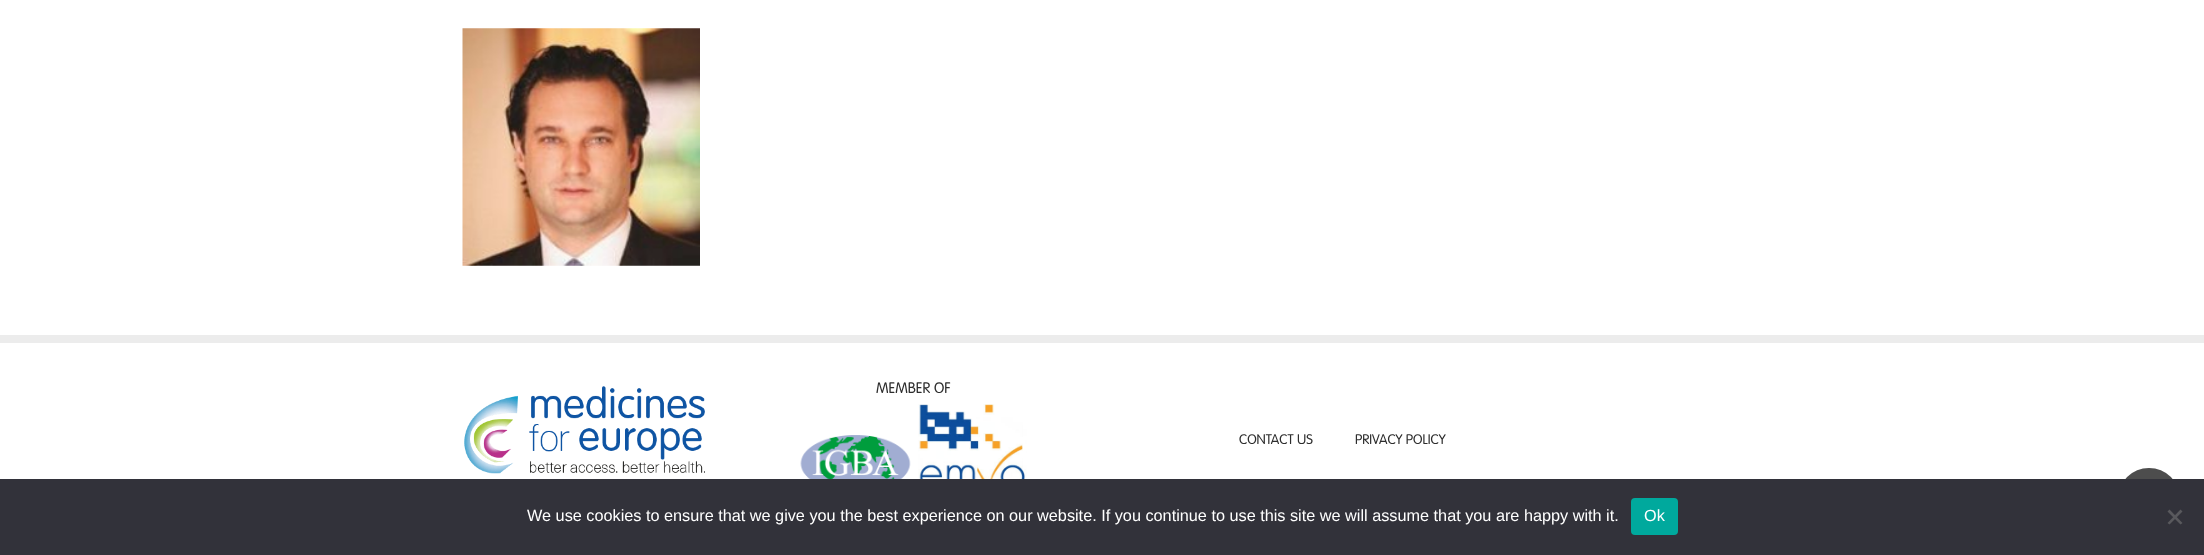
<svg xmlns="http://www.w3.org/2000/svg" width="2204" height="555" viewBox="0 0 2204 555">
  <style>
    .t1 { font: 300 15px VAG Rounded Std; fill: #2d2d2d; }
    .t2 { font: 300 13.75px VAG Rounded Std; fill: #2d2d2d; }
    .t3 { font: 16.25px Liberation Sans; fill: #fff; }
  </style>
  <rect width="100%" height="100%" fill="#fff"/>
  <image x="462" y="28" width="238" height="238" href="images/1.png"/>
  <rect x="0" y="335" width="2204" height="8" fill="#ececec"/>
  <image x="464" y="386" width="241" height="88" href="images/2.png"/>
  <text x="876" y="393" class="t1">MEMBER OF</text>
  <image x="800" y="435" width="111" height="44" href="images/3.png"/>
  <image x="918" y="404" width="109" height="75" href="images/4.png"/>
  <text x="1239" y="444" class="t2">CONTACT US</text>
  <text x="1355" y="444" class="t2">PRIVACY POLICY</text>
  <circle cx="2149" cy="499" r="31" fill="#4d4d4d"/>
  <rect x="0" y="479" width="2204" height="76" fill="#32323a"/>
  <text x="527" y="521" class="t3">We use cookies to ensure that we give you the best experience on our website. If you continue to use this site we will assume that you are happy with it.</text>
  <rect x="1631" y="498" width="47" height="37" rx="4" fill="#00a99d"/>
  <text x="1644" y="521" class="t3">Ok</text>
  <path d="M2180.5 509.5L2182.5 511.5L2169.5 524.5L2167.5 523Z" fill="#59595d"/>
  <path d="M2167.5 511.5L2169.5 509.5L2182.5 523L2180.5 524.5Z" fill="#59595d"/>
</svg>
